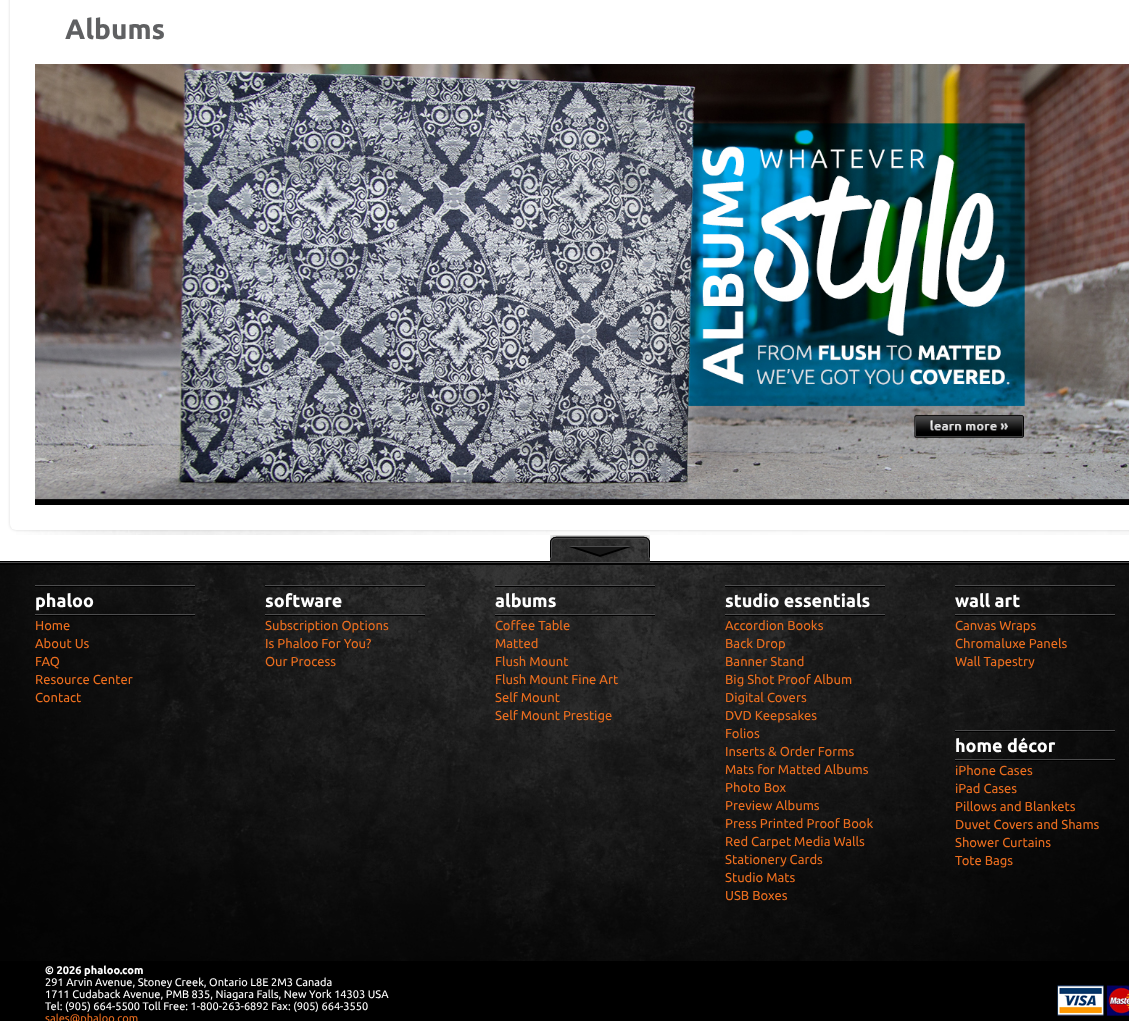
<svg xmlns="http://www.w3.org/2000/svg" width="1129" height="1021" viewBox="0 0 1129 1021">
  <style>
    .t1 { font: bold 28px Ubuntu; fill: #5f6062; }
    .t2 { font: bold 18px Ubuntu; fill: #fff; }
    .t3 { font: 13px Ubuntu; fill: #eb6e1f; }
    .t4 { font: bold 11px Ubuntu; fill: #fff; }
    .t5 { font: 11px Ubuntu; fill: #fff; }
    .t6 { font: 11px Ubuntu; fill: #eb6e1f; }
  </style>
  <rect width="100%" height="100%" fill="#fff"/>
  <image x="16" y="530" width="1113" height="5" href="images/1.png"/>
  <rect x="10" y="-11" width="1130" height="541" rx="6" fill="#00000026" filter="blur(1.5px)"/>
  <rect x="10" y="-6" width="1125" height="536" rx="6" fill="#fff"/>
  <text x="65" y="39" class="t1">Albums</text>
  <image x="35" y="64" width="1094" height="441" href="images/2.png"/>
  <image x="0" y="561" width="1129" height="4" href="images/3.png"/>
  <image x="550" y="535" width="100" height="27" href="images/4.png"/>
  <rect x="0" y="961" width="1129" height="60" fill="#000"/>
  <image x="0" y="565" width="1129" height="396" href="images/5.png"/>
  <image x="35" y="585" width="160" height="31" href="images/6.png"/>
  <text x="35" y="607" class="t2">phaloo</text>
  <text x="35" y="630" class="t3">Home</text>
  <text x="35" y="648" class="t3">About Us</text>
  <text x="35" y="666" class="t3">FAQ</text>
  <text x="35" y="684" class="t3">Resource Center</text>
  <text x="35" y="702" class="t3">Contact</text>
  <image x="265" y="585" width="160" height="31" href="images/7.png"/>
  <text x="265" y="607" class="t2">software</text>
  <text x="265" y="630" class="t3">Subscription Options</text>
  <text x="265" y="648" class="t3">Is Phaloo For You?</text>
  <text x="265" y="666" class="t3">Our Process</text>
  <image x="495" y="585" width="160" height="31" href="images/8.png"/>
  <text x="495" y="607" class="t2">albums</text>
  <text x="495" y="630" class="t3">Coffee Table</text>
  <text x="495" y="648" class="t3">Matted</text>
  <text x="495" y="666" class="t3">Flush Mount</text>
  <text x="495" y="684" class="t3">Flush Mount Fine Art</text>
  <text x="495" y="702" class="t3">Self Mount</text>
  <text x="495" y="720" class="t3">Self Mount Prestige</text>
  <image x="725" y="585" width="160" height="31" href="images/9.png"/>
  <text x="725" y="607" class="t2">studio essentials</text>
  <text x="725" y="630" class="t3">Accordion Books</text>
  <text x="725" y="648" class="t3">Back Drop</text>
  <text x="725" y="666" class="t3">Banner Stand</text>
  <text x="725" y="684" class="t3">Big Shot Proof Album</text>
  <text x="725" y="702" class="t3">Digital Covers</text>
  <text x="725" y="720" class="t3">DVD Keepsakes</text>
  <text x="725" y="738" class="t3">Folios</text>
  <text x="725" y="756" class="t3">Inserts &amp; Order Forms</text>
  <text x="725" y="774" class="t3">Mats for Matted Albums</text>
  <text x="725" y="792" class="t3">Photo Box</text>
  <text x="725" y="810" class="t3">Preview Albums</text>
  <text x="725" y="828" class="t3">Press Printed Proof Book</text>
  <text x="725" y="846" class="t3">Red Carpet Media Walls</text>
  <text x="725" y="864" class="t3">Stationery Cards</text>
  <text x="725" y="882" class="t3">Studio Mats</text>
  <text x="725" y="900" class="t3">USB Boxes</text>
  <image x="955" y="585" width="160" height="31" href="images/10.png"/>
  <text x="955" y="607" class="t2">wall art</text>
  <text x="955" y="630" class="t3">Canvas Wraps</text>
  <text x="955" y="648" class="t3">Chromaluxe Panels</text>
  <text x="955" y="666" class="t3">Wall Tapestry</text>
  <image x="955" y="730" width="160" height="31" href="images/11.png"/>
  <text x="955" y="752" class="t2">home décor</text>
  <text x="955" y="775" class="t3">iPhone Cases</text>
  <text x="955" y="793" class="t3">iPad Cases</text>
  <text x="955" y="811" class="t3">Pillows and Blankets</text>
  <text x="955" y="829" class="t3">Duvet Covers and Shams</text>
  <text x="955" y="847" class="t3">Shower Curtains</text>
  <text x="955" y="865" class="t3">Tote Bags</text>
  <text x="45" y="974" class="t4">© 2026 phaloo.com</text>
  <text x="45" y="986" class="t5">291 Arvin Avenue, Stoney Creek, Ontario L8E 2M3 Canada</text>
  <text x="45" y="998" class="t5">1711 Cudaback Avenue, PMB 835, Niagara Falls, New York 14303 USA</text>
  <text x="45" y="1010" class="t5">Tel: (905) 664-5500 Toll Free: 1-800-263-6892 Fax: (905) 664-3550</text>
  <text x="45" y="1022" class="t6">sales@phaloo.com</text>
  <image x="1057" y="985" width="72" height="31" href="images/12.png"/>
</svg>
